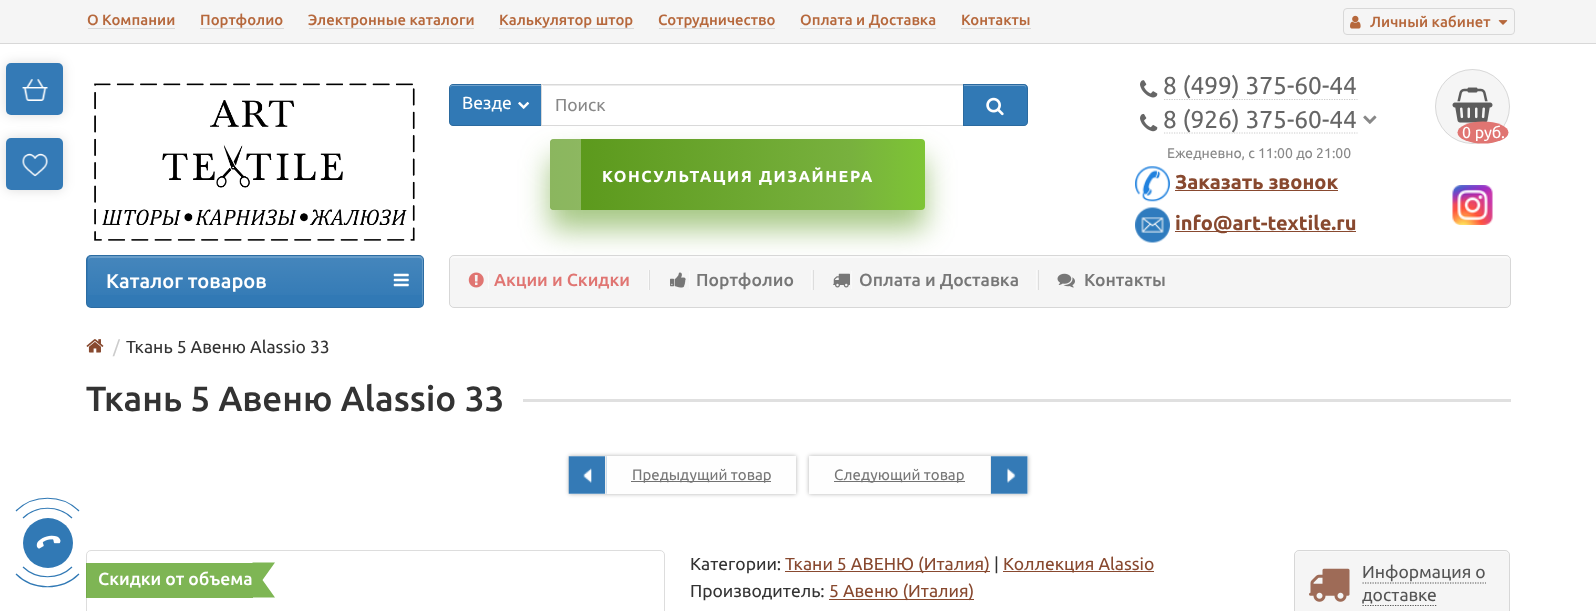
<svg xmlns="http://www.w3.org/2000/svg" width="1596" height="611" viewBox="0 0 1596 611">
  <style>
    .t1 { font: 500 14.9px Ubuntu; fill: #b6683c; }
    .t2 { font: 17.5px Ubuntu; fill: #fff; }
    .t3 { font: 17.5px Ubuntu; fill: #888; }
    .t4 { font: bold 16px Ubuntu; letter-spacing: 1.6px; fill: #fff; }
    .t5 { font: 24.5px Ubuntu; fill: #666; }
    .t6 { font: 14px Ubuntu; fill: #888; }
    .t7 { font: bold 20px Ubuntu; fill: #88492f; }
    .t8 { font: 16px Ubuntu; fill: #fff; }
    .t9 { font: 500 20px Ubuntu; fill: #fff; }
    .t10 { font: 500 17.5px Ubuntu; fill: #e07572; }
    .t11 { font: 500 17.5px Ubuntu; fill: #777; }
    .t12 { font: 17.5px Ubuntu; fill: #ccc; }
    .t13 { font: 17.5px Ubuntu; fill: #333; }
    .t14 { font: 500 35px Ubuntu; fill: #333; }
    .t15 { font: 15px Ubuntu; fill: #777; }
    .t16 { font: 500 17.5px Ubuntu; fill: #fff; }
    .t17 { font: 17.5px Ubuntu; fill: #88492f; }
    .t18 { font: 17.5px Ubuntu; fill: #555; }
  </style>
  <defs>
    <linearGradient id="g1" gradientUnits="userSpaceOnUse" x1="550" y1="174" x2="925" y2="174"><stop offset="0" stop-color="#599719"/><stop offset="0.8" stop-color="#78b13e"/><stop offset="1" stop-color="#7ec535"/></linearGradient>
    <linearGradient id="g2" gradientUnits="userSpaceOnUse" x1="255" y1="256" x2="255" y2="306"><stop offset="0" stop-color="#fff" stop-opacity="0.1"/><stop offset="1" stop-color="#fff" stop-opacity="0"/></linearGradient>
  </defs>
  <rect width="100%" height="100%" fill="#fff"/>
  <rect x="0" y="0" width="1596" height="43" fill="#f5f5f5"/>
  <rect x="0" y="43" width="1596" height="1" fill="#d8d8d8"/>
  <text x="87" y="25" class="t1">О Компании</text>
  <rect x="88" y="28" width="87" height="1" fill="#d8d8d8"/>
  <text x="200" y="25" class="t1">Портфолио</text>
  <rect x="200" y="28" width="84" height="1" fill="#d8d8d8"/>
  <text x="308" y="25" class="t1">Электронные каталоги</text>
  <rect x="309" y="28" width="165" height="1" fill="#d8d8d8"/>
  <text x="499" y="25" class="t1">Калькулятор штор</text>
  <rect x="499" y="28" width="135" height="1" fill="#d8d8d8"/>
  <text x="658" y="25" class="t1">Сотрудничество</text>
  <rect x="659" y="28" width="116" height="1" fill="#d8d8d8"/>
  <text x="800" y="25" class="t1">Оплата и Доставка</text>
  <rect x="800" y="28" width="136" height="1" fill="#d8d8d8"/>
  <text x="961" y="25" class="t1">Контакты</text>
  <rect x="961" y="28" width="70" height="1" fill="#d8d8d8"/>
  <rect x="1343.5" y="8.5" width="171" height="26" rx="3.5" fill="none" stroke="#d8d8d8"/>
  <image x="1350" y="15" width="11" height="14" href="images/1.png"/>
  <text x="1370" y="27" class="t1">Личный кабинет</text>
  <image x="1498" y="20" width="10" height="5" href="images/2.png"/>
  <rect x="6" y="138" width="57" height="52" rx="5" fill="#00000024" filter="blur(6px)"/>
  <rect x="6" y="138" width="57" height="52" rx="5" fill="#347ab6"/>
  <image x="22" y="153" width="26" height="24" href="images/3.png"/>
  <image x="94" y="83" width="321" height="158" href="images/4.png"/>
  <path d="M453 84H544V126H453C451 126 449 124 449 122V88C449 86 451 84 453 84Z" fill="#3179b5"/>
  <path d="M452 86H542V125H543V85H452C451 85 450 86 450 88V89C450 87 451 86 452 86Z" fill="#6fa1cb"/>
  <path d="M453 84.5H543.5V125.5H453C451 125.5 449.5 124 449.5 122V88C449.5 86 451 84.5 453 84.5Z" fill="none" stroke="#0000001f"/>
  <text x="462" y="109" class="t2">Везде</text>
  <image x="518" y="101" width="12" height="8" href="images/5.png"/>
  <rect x="550" y="158" width="375" height="71" rx="4" fill="#5997198a" filter="blur(14.5px)"/>
  <rect x="542" y="85" width="2" height="40" fill="#fff"/>
  <rect x="543" y="85" width="420" height="1" fill="#ececec"/>
  <rect x="541.5" y="84.5" width="422" height="41" fill="none" stroke="#d9d9d9"/>
  <text x="555" y="111" class="t3">Поиск</text>
  <path d="M963 84H1024C1026 84 1028 86 1028 88V122C1028 124 1026 126 1024 126H963Z" fill="#3179b5"/>
  <path d="M964 86H1024C1025 86 1026 87 1026 89V88C1026 86 1025 85 1024 85H964Z" fill="#6fa1cb"/>
  <path d="M963.5 84.5H1024C1026 84.5 1027.5 86 1027.5 88V122C1027.5 124 1026 125.5 1024 125.5H963.5Z" fill="none" stroke="#0000001f"/>
  <image x="986" y="97" width="18" height="19" href="images/6.png"/>
  <rect x="550" y="139" width="375" height="71" rx="4" fill="url(#g1)"/>
  <path d="M554 139H581V210H554C552 210 550 208 550 206V143C550 141 552 139 554 139Z" fill="#ffffff4d"/>
  <text x="602" y="182" class="t4">КОНСУЛЬТАЦИЯ ДИЗАЙНЕРА</text>
  <image x="1140" y="80" width="18" height="18" href="images/7.png"/>
  <path d="M1164 99.5H1357.5" fill="none" stroke="#ccc" stroke-width="1.2" stroke-dasharray="1.25 1.25"/>
  <text x="1163" y="94" class="t5">8 (499) 375-60-44</text>
  <image x="1140" y="113" width="18" height="19" href="images/8.png"/>
  <path d="M1164 133H1357.5" fill="none" stroke="#ccc" stroke-width="1.2" stroke-dasharray="1.25 1.25"/>
  <text x="1163" y="128" class="t5">8 (926) 375-60-44</text>
  <image x="1363" y="115" width="14" height="9" href="images/9.png"/>
  <text x="1167" y="158" class="t6">Ежедневно, с 11:00 до 21:00</text>
  <image x="1135" y="166" width="35" height="36" href="images/10.png"/>
  <text x="1175" y="189" class="t7">Заказать звонок</text>
  <rect x="1175" y="190" width="163" height="1" fill="#88492f"/>
  <image x="1135" y="207" width="35" height="36" href="images/11.png"/>
  <rect x="1175" y="231" width="181" height="1" fill="#88492f"/>
  <text x="1175" y="230" class="t7">info@art-textile.ru</text>
  <rect x="6" y="63" width="57" height="52" rx="5" fill="#00000024" filter="blur(6px)"/>
  <rect x="6" y="63" width="57" height="52" rx="5" fill="#347ab6"/>
  <image x="22" y="79" width="26" height="22" href="images/12.png"/>
  <circle cx="1472.5" cy="106.5" r="37.5" fill="#f5f5f5"/>
  <circle cx="1472.5" cy="106.5" r="37" fill="none" stroke="#0000001f"/>
  <image x="1452" y="87" width="41" height="36" href="images/13.png"/>
  <ellipse cx="1483" cy="132.5" rx="25.5" ry="11" fill="#e07572"/>
  <text x="1462" y="138" class="t8">0 руб.</text>
  <image x="1452" y="185" width="41" height="40" href="images/14.png"/>
  <rect x="86" y="255" width="338" height="53" rx="5" fill="#3179b5"/>
  <path d="M91 258H419C421 258 422 259 422 261V305C423 304 423 303 423 302V260C423 258 421 256 419 256H92C90 256 88 258 88 260V261C88 259 89 258 91 258Z" fill="#5a94c4"/>
  <rect x="86.5" y="255.5" width="337" height="52" rx="4.5" fill="none" stroke="#0000001a"/>
  <rect x="88" y="256" width="335" height="39" fill="url(#g2)"/>
  <text x="106" y="288" class="t9">Каталог товаров</text>
  <image x="393" y="273" width="16" height="14" href="images/15.png"/>
  <rect x="449" y="255" width="1062" height="53" rx="5" fill="#f5f5f5"/>
  <path d="M454 258H1506C1508 258 1510 259 1510 261C1510 258 1509 256 1506 256H454C451 256 450 258 450 261C450 259 452 258 454 258Z" fill="#fafafa"/>
  <rect x="449.5" y="255.5" width="1061" height="52" rx="4.5" fill="none" stroke="#0000001f"/>
  <rect x="488" y="271" width="1" height="18" fill="#fafafa"/>
  <rect x="648" y="270" width="1" height="20" fill="#fafafa"/>
  <rect x="649" y="270" width="1" height="20" fill="#ddd"/>
  <image x="468" y="272" width="16" height="16" href="images/16.png"/>
  <text x="494" y="286" class="t10">Акции и Скидки</text>
  <rect x="689" y="271" width="1" height="18" fill="#fafafa"/>
  <rect x="811" y="270" width="1" height="20" fill="#fafafa"/>
  <rect x="813" y="270" width="1" height="20" fill="#ddd"/>
  <image x="670" y="272" width="16" height="16" href="images/17.png"/>
  <text x="696" y="286" class="t11">Портфолио</text>
  <rect x="851" y="271" width="1" height="18" fill="#fafafa"/>
  <rect x="1036" y="270" width="1" height="20" fill="#fafafa"/>
  <rect x="1038" y="270" width="1" height="20" fill="#ddd"/>
  <image x="833" y="273" width="17" height="15" href="images/18.png"/>
  <text x="859" y="286" class="t11">Оплата и Доставка</text>
  <image x="1057" y="273" width="18" height="15" href="images/19.png"/>
  <text x="1084" y="286" class="t11">Контакты</text>
  <circle cx="48" cy="543" r="25" fill="#3179b5"/>
  <path d="M23 518C36.5 505 58.5 505 72 518" fill="none" stroke="#3179b5" stroke-width="1.2"/>
  <path d="M16 511C33 494 62 494 79 511" fill="none" stroke="#3179b5" stroke-width="1.2"/>
  <path d="M72 567C58.5 580 36.5 580 23 567" fill="none" stroke="#3179b5" stroke-width="1.2"/>
  <path d="M79 574C62 591 33 591 16 574" fill="none" stroke="#3179b5" stroke-width="1.2"/>
  <image x="36" y="535" width="25" height="14" href="images/20.png"/>
  <image x="86" y="339" width="18" height="14" href="images/21.png"/>
  <text x="113" y="353" class="t12">/</text>
  <text x="126" y="353" class="t13">Ткань 5 Авеню Alassio 33</text>
  <text x="86" y="411" class="t14">Ткань 5 Авеню Alassio 33</text>
  <rect x="523" y="399" width="988" height="3" fill="#e0e0e0"/>
  <rect x="569" y="456" width="227" height="38" fill="#0000004d" filter="blur(2px)"/>
  <rect x="569" y="456" width="227" height="38" fill="#fefefe"/>
  <image x="568" y="456" width="39" height="38" href="images/22.png"/>
  <rect x="605" y="456" width="1" height="38" fill="#ededed"/>
  <rect x="631" y="481" width="140" height="1" fill="#727272"/>
  <text x="632" y="480" class="t15">Предыдущий товар</text>
  <rect x="809" y="456" width="219" height="38" fill="#0000004d" filter="blur(2px)"/>
  <rect x="809" y="456" width="219" height="38" fill="#fefefe"/>
  <rect x="834" y="481" width="131" height="1" fill="#727272"/>
  <text x="834" y="480" class="t15">Следующий товар</text>
  <image x="991" y="456" width="37" height="38" href="images/23.png"/>
  <rect x="990" y="456" width="1" height="38" fill="#ededed"/>
  <rect x="86.5" y="550.5" width="578" height="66" rx="4.5" fill="none" stroke="#ddd"/>
  <rect x="86" y="563" width="167" height="35" fill="#47960bb3"/>
  <text x="98" y="585" class="t16">Скидки от объема</text>
  <path d="M252.5 562.5H275L262.5 580H252.5ZM275 597.5H252.5V580H262.5Z" fill="#7eb654"/>
  <text x="690" y="570" class="t13">Категории:</text>
  <rect x="785" y="571" width="205" height="1" fill="#88492f"/>
  <text x="785" y="570" class="t17">Ткани 5 АВЕНЮ (Италия)</text>
  <text x="994" y="570" class="t13">|</text>
  <rect x="1003" y="571" width="151" height="1" fill="#88492f"/>
  <text x="1003" y="570" class="t17">Коллекция Alassio</text>
  <text x="690" y="597" class="t13">Производитель:</text>
  <rect x="829" y="599" width="145" height="1" fill="#88492f"/>
  <text x="829" y="597" class="t17">5 Авеню (Италия)</text>
  <rect x="1294" y="550" width="216" height="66" rx="5" fill="#f5f5f5"/>
  <path d="M1299 552H1505C1507 552 1509 554 1509 556C1509 553 1508 551 1505 551H1297C1295 552 1295 554 1295 556C1295 554 1297 552 1299 552Z" fill="#f8f8f8"/>
  <rect x="1294.5" y="550.5" width="215" height="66" rx="4.5" fill="none" stroke="#0000001f"/>
  <image x="1309" y="568" width="41" height="34" href="images/24.png"/>
  <text x="1362" y="578" class="t18">Информация о</text>
  <path d="M1362.5 583H1486" fill="none" stroke="#555" stroke-width="1.2" stroke-dasharray="1.25 1.25"/>
  <text x="1362" y="601" class="t18">доставке</text>
  <path d="M1362.5 605.5H1437.5" fill="none" stroke="#555" stroke-width="1.2" stroke-dasharray="1.25 1.25"/>
</svg>
